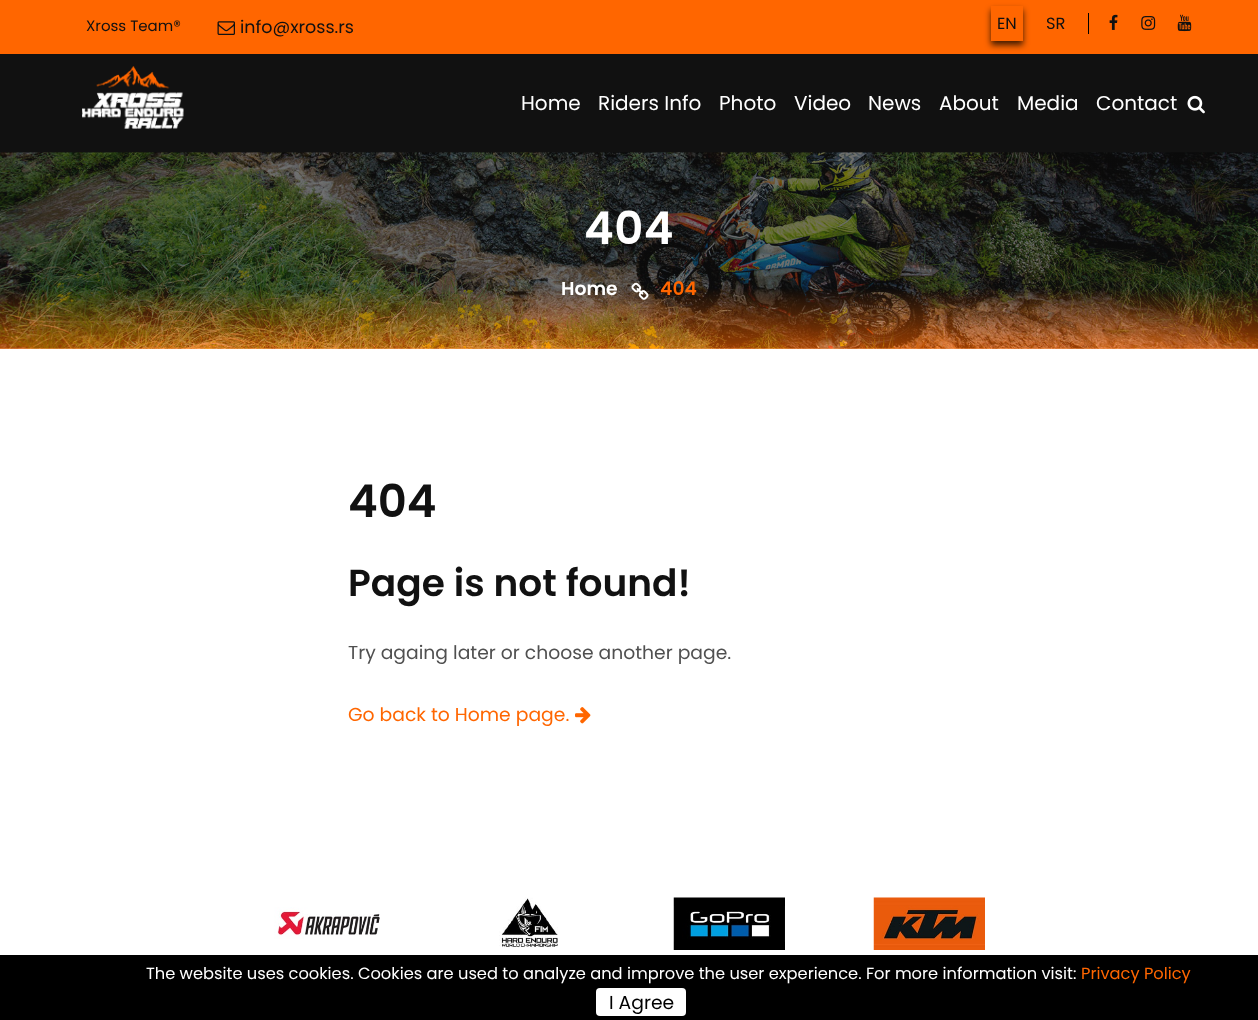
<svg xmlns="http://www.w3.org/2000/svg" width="1258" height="1020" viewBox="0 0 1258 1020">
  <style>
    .t1 { font: 15px Poppins; fill: #111; }
    .t2 { font: 17.5px Poppins; fill: #111; }
    .t3 { font: 16.25px Poppins; fill: #111; }
    .t4 { font: 20px Poppins; fill: #fff; }
    .t5 { font: 600 45px Poppins; letter-spacing: 0.5px; fill: #fff; }
    .t6 { font: 600 18.75px Poppins; fill: #fff; }
    .t7 { font: 600 18.75px Poppins; fill: #f60; }
    .t8 { font: 600 45px Poppins; fill: #111; }
    .t9 { font: 600 37.5px Poppins; fill: #111; }
    .t10 { font: 18.75px Poppins; fill: #505050; }
    .t11 { font: 18.75px Poppins; fill: #f60; }
    .t12 { font: 16.25px Poppins; fill: #fff; }
    .t13 { font: 16.25px Poppins; fill: #f60; }
    .t14 { font: 18.75px Poppins; fill: #000; }
  </style>
  <defs>
    <clipPath id="clip1"><path d="M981 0H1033V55H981ZM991 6H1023V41H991Z" clip-rule="evenodd"/></clipPath>
    <linearGradient id="g1" gradientUnits="userSpaceOnUse" x1="629" y1="152" x2="629" y2="349"><stop offset="0.69" stop-color="#111" stop-opacity="0.6"/><stop offset="1" stop-color="#f60" stop-opacity="0.6"/></linearGradient>
  </defs>
  <rect width="100%" height="100%" fill="#fff"/>
  <rect x="0" y="0" width="1258" height="54" fill="#f60"/>
  <text x="86" y="31" class="t1">Xross Team®</text>
  <image x="217" y="21" width="18" height="14" href="images/1.png"/>
  <text x="240" y="33" class="t2">info@xross.rs</text>
  <rect x="1088" y="13" width="1" height="21" fill="#000"/>
  <rect x="0" y="54" width="1258" height="99" fill="#111"/>
  <g clip-path="url(#clip1)">
    <rect x="991" y="10" width="32" height="35" fill="#000000bf" filter="blur(3px)"/>
  </g>
  <text x="997" y="29" class="t3">EN</text>
  <text x="1046" y="29" class="t3">SR</text>
  <image x="1109" y="14" width="9" height="16" href="images/2.png"/>
  <image x="1141" y="16" width="15" height="14" href="images/3.png"/>
  <image x="1177" y="14" width="15" height="18" href="images/4.png"/>
  <image x="82" y="66" width="102" height="63" href="images/5.png"/>
  <text x="521" y="110" class="t4">Home</text>
  <text x="598" y="110" class="t4">Riders Info</text>
  <text x="719" y="110" class="t4">Photo</text>
  <text x="794" y="110" class="t4">Video</text>
  <text x="868" y="110" class="t4">News</text>
  <text x="939" y="110" class="t4">About</text>
  <text x="1017" y="110" class="t4">Media</text>
  <text x="1096" y="110" class="t4">Contact</text>
  <image x="1187" y="95" width="18" height="19" href="images/6.png"/>
  <image x="0" y="152" width="1258" height="197" href="images/7.png"/>
  <rect x="0" y="153" width="1258" height="196" fill="url(#g1)"/>
  <text x="584" y="244" class="t5">404</text>
  <text x="561" y="295" class="t6">Home</text>
  <image x="631" y="282" width="18" height="18" href="images/8.png"/>
  <text x="660" y="295" class="t7">404</text>
  <text x="348" y="517" class="t8">404</text>
  <text x="348" y="596" class="t9">Page is not found!</text>
  <text x="348" y="659" class="t10">Try againg later or choose another page.</text>
  <text x="348" y="721" class="t11">Go back to Home page.</text>
  <image x="575" y="707" width="16" height="17" href="images/9.png"/>
  <image x="274" y="907" width="106" height="32" href="images/10.png"/>
  <image x="499" y="897" width="59" height="51" href="images/11.png"/>
  <image x="673" y="897" width="112" height="53" href="images/12.png"/>
  <image x="873" y="897" width="112" height="53" href="images/13.png"/>
  <rect x="0" y="955" width="1258" height="65" fill="#000"/>
  <text x="146" y="979" class="t12">The website uses cookies. Cookies are used to analyze and improve the user experience. For more information visit:</text>
  <text x="1081" y="979" class="t13">Privacy Policy</text>
  <rect x="596" y="988" width="90" height="28" rx="4" fill="#fff"/>
  <text x="609" y="1009" class="t14">I Agree</text>
</svg>
